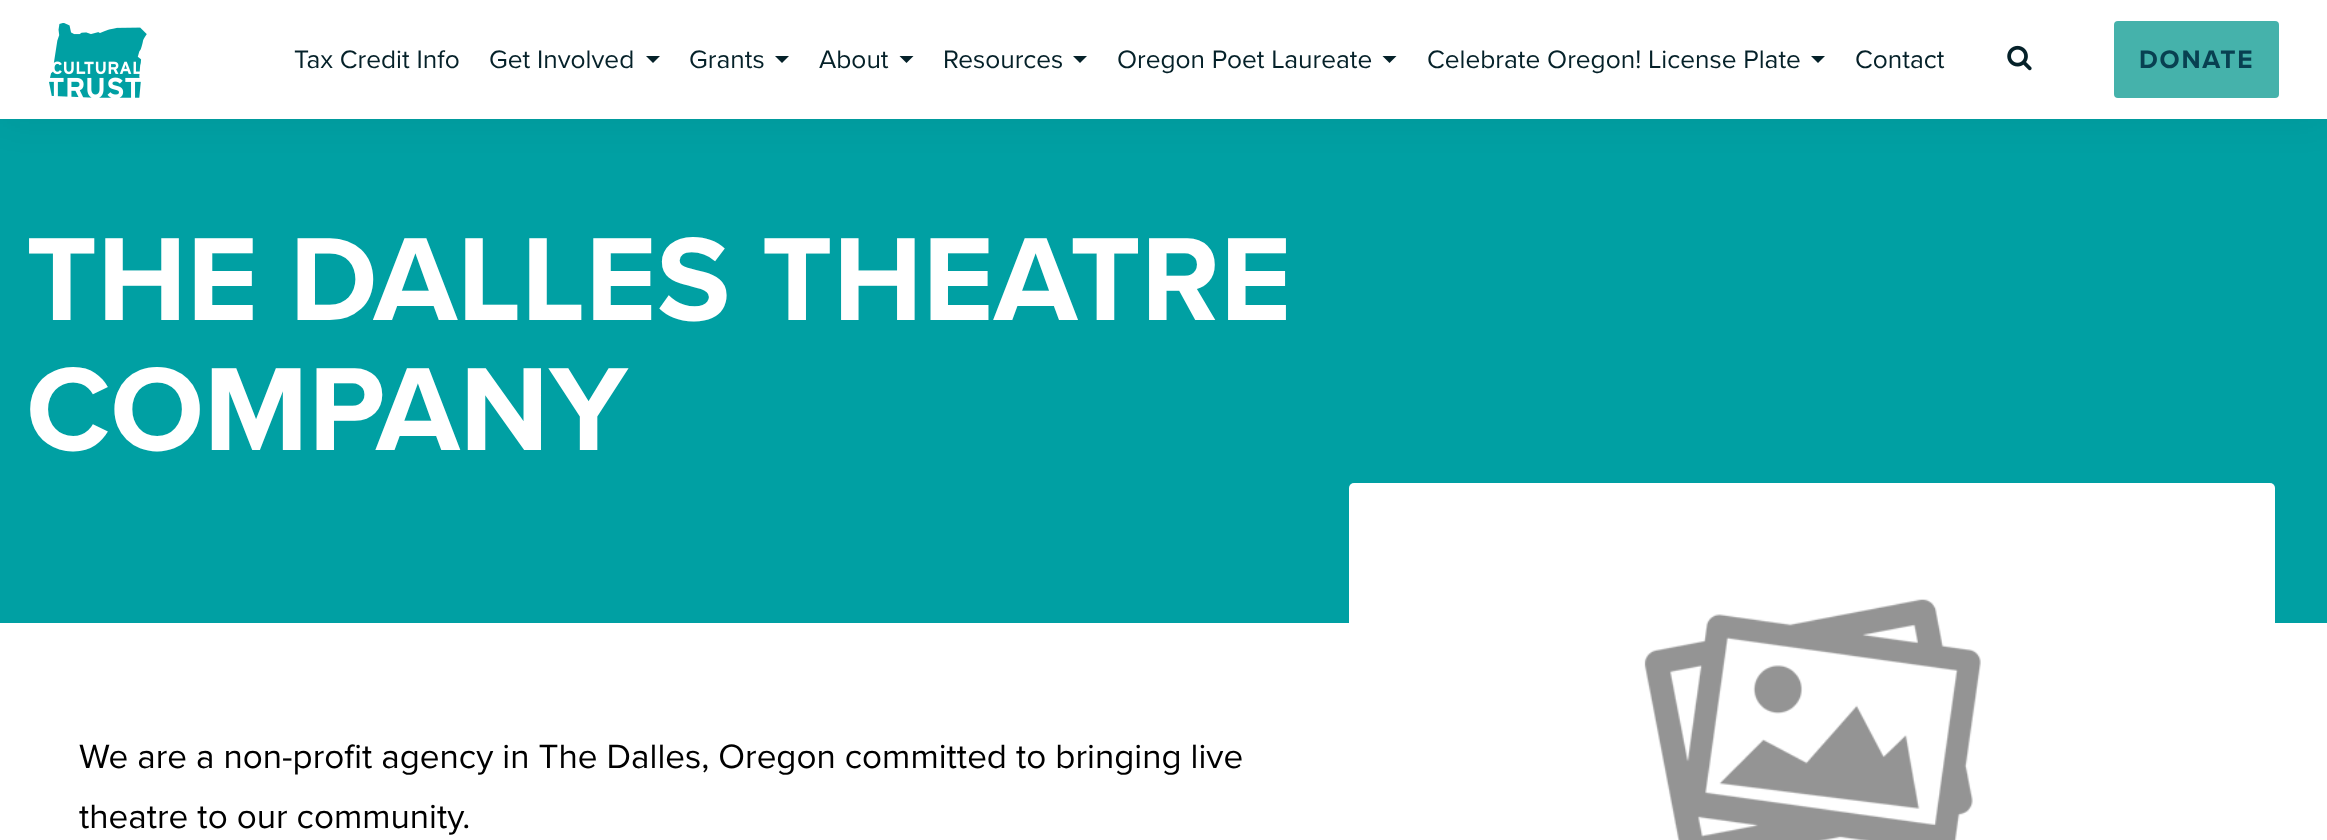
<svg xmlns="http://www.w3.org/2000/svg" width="2327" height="840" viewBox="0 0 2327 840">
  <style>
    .t1 { font: 26.25px Proxima Nova; fill: #052129; }
    .t2 { font: bold 26.25px Proxima Nova; letter-spacing: 1.75px; fill: #084051; }
    .t3 { font: bold 122.5px Proxima Nova; fill: #fff; }
    .t4 { font: 35px Proxima Nova; fill: #000; }
  </style>
  <rect width="100%" height="100%" fill="#fff"/>
  <rect x="0" y="119" width="2327" height="504" fill="#00a0a3"/>
  <rect x="0" y="5" width="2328" height="119" fill="#0000000d" filter="blur(17.5px)"/>
  <rect x="0" y="0" width="2327" height="119" fill="#fff"/>
  <image x="49" y="23" width="98" height="75" href="images/1.png"/>
  <text x="294" y="68" class="t1">Tax Credit Info</text>
  <text x="489" y="68" class="t1">Get Involved</text>
  <path d="M646 56H660L653 63Z" fill="#052129"/>
  <text x="689" y="68" class="t1">Grants</text>
  <path d="M775 56H789L782 63Z" fill="#052129"/>
  <text x="819" y="68" class="t1">About</text>
  <path d="M899.5 56H913.5L906.5 63Z" fill="#052129"/>
  <text x="943" y="68" class="t1">Resources</text>
  <path d="M1073 56H1087L1080 63Z" fill="#052129"/>
  <text x="1117" y="68" class="t1">Oregon Poet Laureate</text>
  <path d="M1382.5 56H1396.5L1389.5 63Z" fill="#052129"/>
  <text x="1427" y="68" class="t1">Celebrate Oregon! License Plate</text>
  <path d="M1811 56H1825L1818 63Z" fill="#052129"/>
  <text x="1855" y="68" class="t1">Contact</text>
  <image x="2007" y="45" width="25" height="26" href="images/2.png"/>
  <rect x="2114" y="21" width="165" height="77" rx="4" fill="#45b2ab"/>
  <text x="2139" y="68" class="t2">DONATE</text>
  <text x="26" y="320" class="t3">THE DALLES THEATRE</text>
  <text x="26" y="450" class="t3">COMPANY</text>
  <text x="79" y="768" class="t4">We are a non-profit agency in The Dalles, Oregon committed to bringing live</text>
  <text x="79" y="828" class="t4">theatre to our community.</text>
  <rect x="1349" y="483" width="926" height="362" rx="5" fill="#fff"/>
  <image x="1644" y="599" width="337" height="241" href="images/3.png"/>
</svg>
